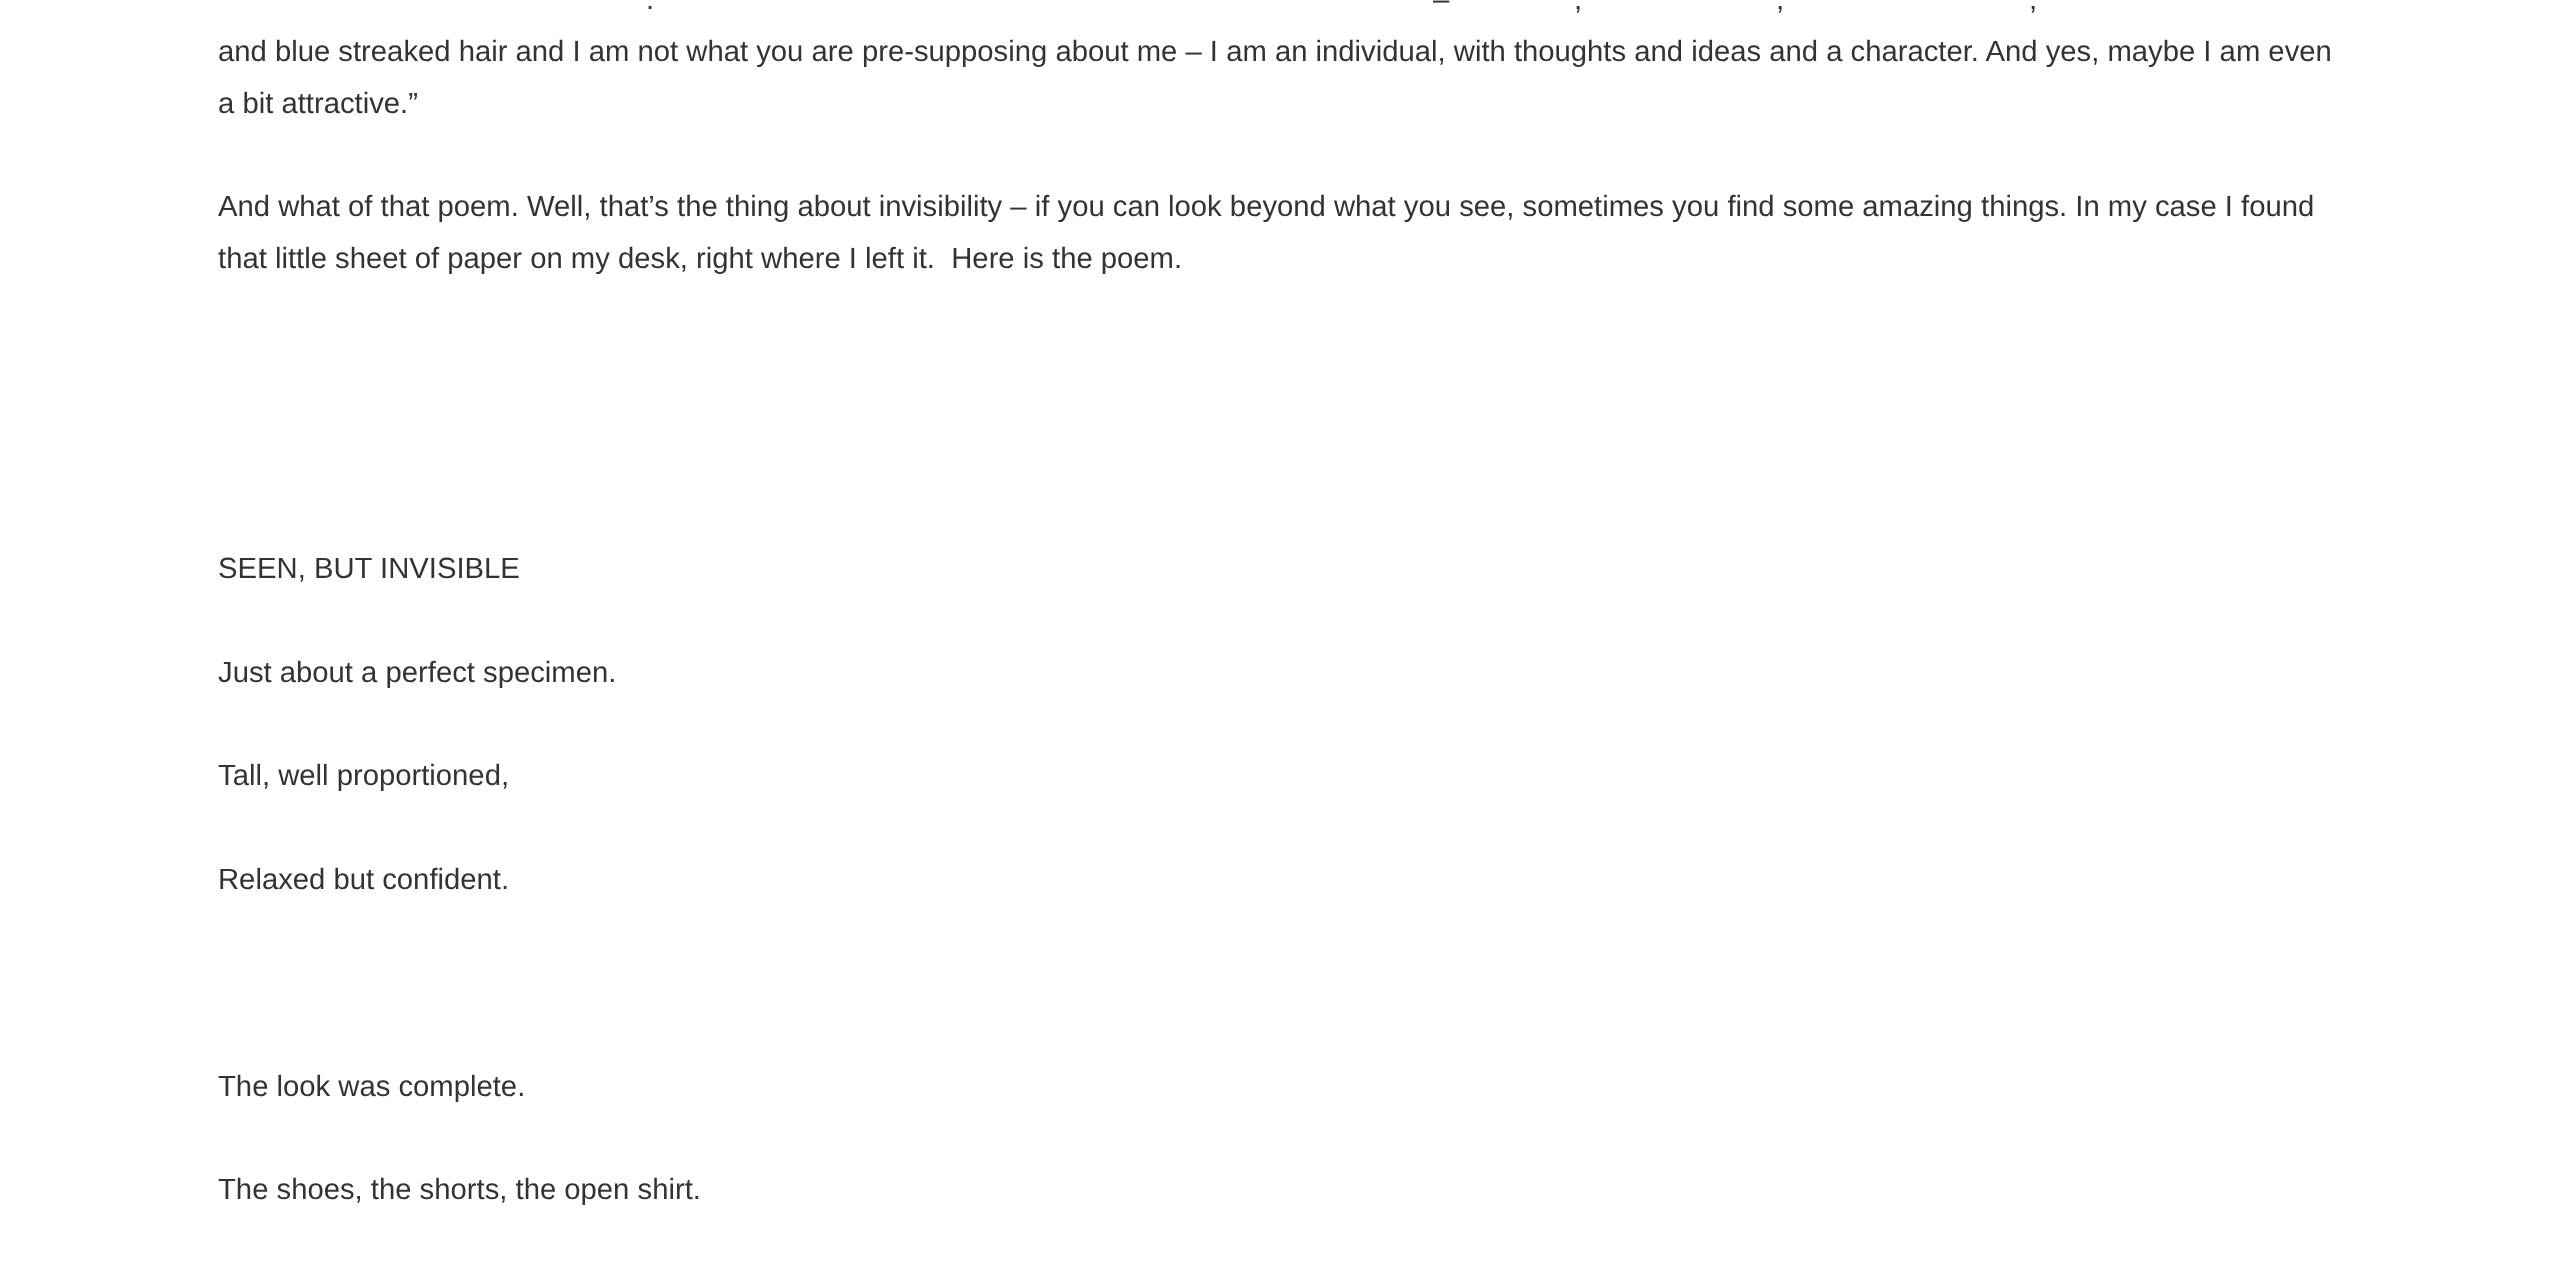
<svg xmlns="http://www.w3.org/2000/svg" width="2550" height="1262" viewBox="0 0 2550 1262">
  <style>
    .t1 { font: 29.25px Liberation Sans; fill: #333; }
  </style>
  <rect width="100%" height="100%" fill="#fff"/>
  <text x="1433" y="9" class="t1">–</text>
  <text x="646" y="9" class="t1">.</text>
  <text x="1574" y="9" class="t1">,</text>
  <text x="1776" y="9" class="t1">,</text>
  <text x="2029" y="9" class="t1">,</text>
  <text x="218" y="61" class="t1">and blue streaked hair and I am not what you are pre-supposing about me – I am an individual, with thoughts and ideas and a character. And yes, maybe I am even</text>
  <text x="218" y="113" class="t1">a bit attractive.”</text>
  <text x="218" y="216" class="t1">And what of that poem. Well, that’s the thing about invisibility – if you can look beyond what you see, sometimes you find some amazing things. In my case I found</text>
  <text x="218" y="268" class="t1" xml:space="preserve">that little sheet of paper on my desk, right where I left it.  Here is the poem.</text>
  <text x="218" y="578" class="t1">SEEN, BUT INVISIBLE</text>
  <text x="218" y="682" class="t1">Just about a perfect specimen.</text>
  <text x="218" y="785" class="t1">Tall, well proportioned,</text>
  <text x="218" y="889" class="t1">Relaxed but confident.</text>
  <text x="218" y="1096" class="t1">The look was complete.</text>
  <text x="218" y="1199" class="t1">The shoes, the shorts, the open shirt.</text>
</svg>
